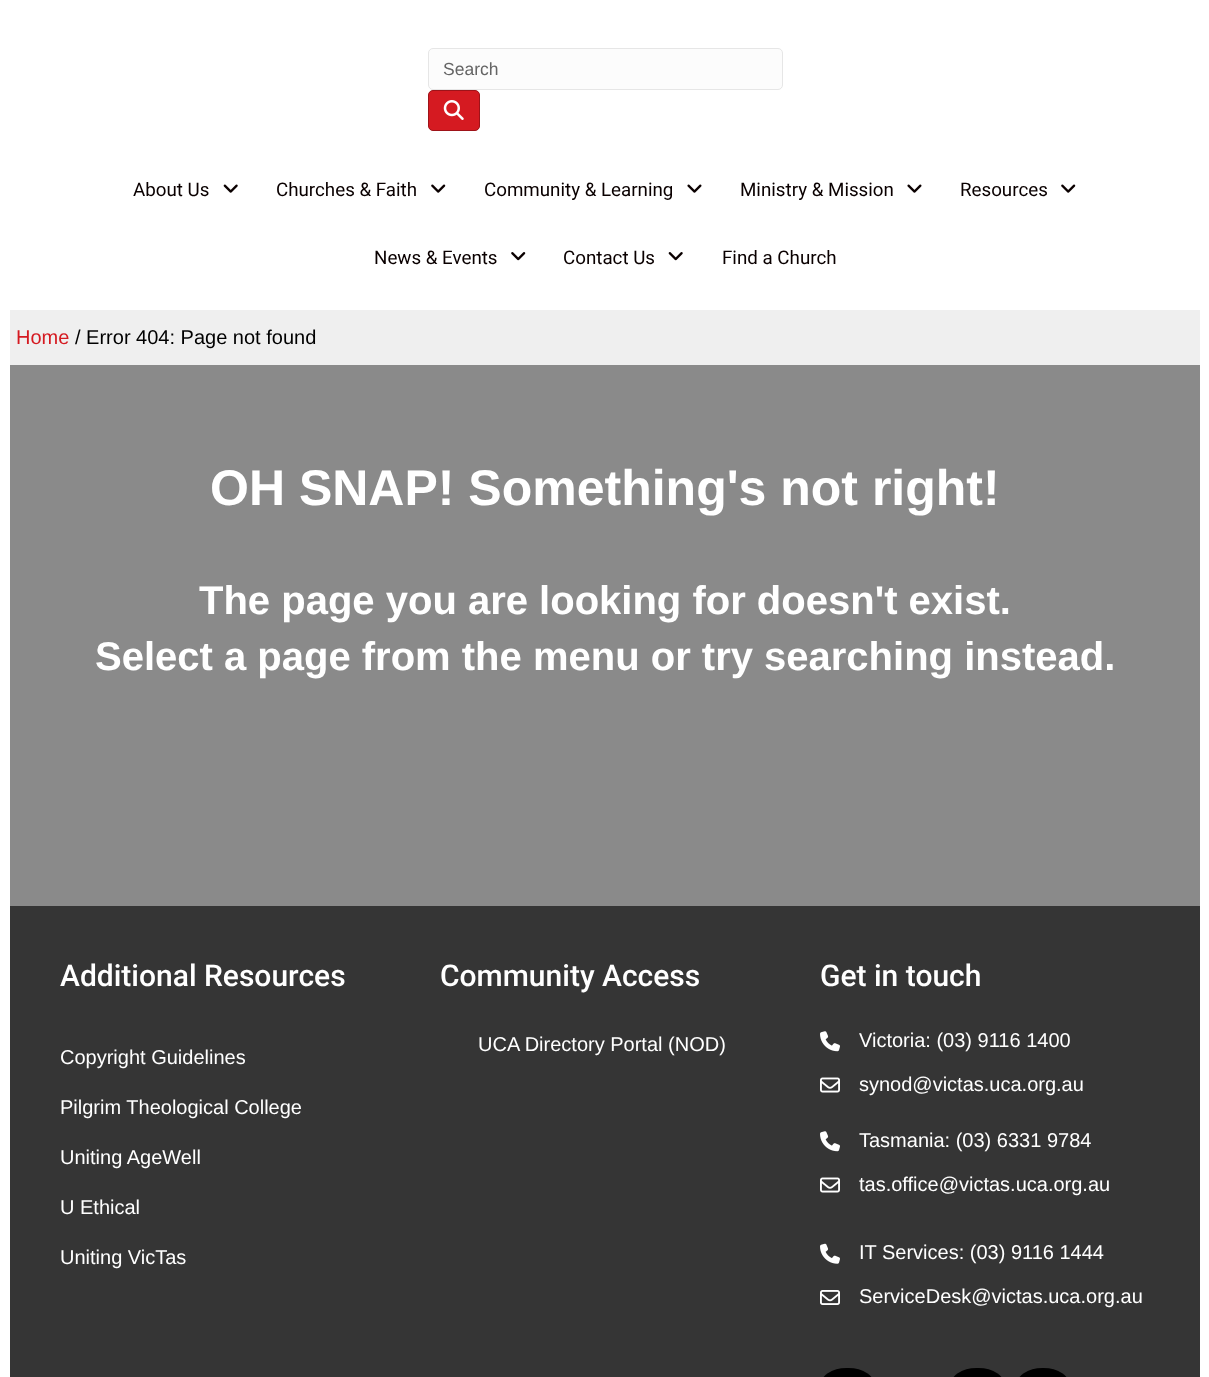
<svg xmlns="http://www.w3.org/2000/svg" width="1209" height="1377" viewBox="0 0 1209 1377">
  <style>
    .t1 { font: 17.5px Liberation Sans; fill: #656565; }
    .t2 { font: 18.75px Roboto; fill: #0a0000; }
    .t3 { font: 20px Liberation Sans; fill: #d51a21; }
    .t4 { font: 20px Liberation Sans; fill: #000; }
    .t5 { font: bold 50px Liberation Sans; fill: #fff; }
    .t6 { font: bold 40px Liberation Sans; fill: #fff; }
    .t7 { font: 500 30px Roboto; fill: #fff; }
    .t8 { font: 20px Liberation Sans; fill: #fff; }
  </style>
  <rect width="100%" height="100%" fill="#fff"/>
  <rect x="428.5" y="48.5" width="354" height="41" rx="4.5" fill="#fcfcfc" stroke="#e6e6e6"/>
  <text x="443" y="75" class="t1">Search</text>
  <rect x="428.5" y="90.5" width="51" height="40" rx="4.5" fill="#d51a21" stroke="#9e1319"/>
  <image x="443" y="100" width="21" height="20" href="images/1.png"/>
  <text x="133" y="196" class="t2">About Us</text>
  <image x="223" y="184" width="15" height="9" href="images/2.png"/>
  <text x="276" y="196" class="t2">Churches &amp; Faith</text>
  <image x="431" y="184" width="15" height="9" href="images/3.png"/>
  <text x="484" y="196" class="t2">Community &amp; Learning</text>
  <image x="687" y="184" width="15" height="9" href="images/4.png"/>
  <text x="740" y="196" class="t2">Ministry &amp; Mission</text>
  <image x="907" y="184" width="15" height="9" href="images/4.png"/>
  <text x="960" y="196" class="t2">Resources</text>
  <image x="1061" y="184" width="15" height="9" href="images/3.png"/>
  <text x="374" y="264" class="t2">News &amp; Events</text>
  <image x="511" y="252" width="15" height="9" href="images/5.png"/>
  <text x="563" y="264" class="t2">Contact Us</text>
  <image x="668" y="252" width="15" height="9" href="images/6.png"/>
  <text x="722" y="264" class="t2">Find a Church</text>
  <rect x="10" y="310" width="1190" height="55" fill="#efefef"/>
  <text x="16" y="344" class="t3">Home</text>
  <text x="75" y="344" class="t4">/ Error 404: Page not found</text>
  <rect x="10" y="365" width="1190" height="541" fill="#8a8a8a"/>
  <text x="210" y="505" class="t5">OH SNAP! Something's not right!</text>
  <text x="199" y="614" class="t6">The page you are looking for doesn't exist.</text>
  <text x="95" y="670" class="t6">Select a page from the menu or try searching instead.</text>
  <rect x="10" y="906" width="1190" height="471" fill="#353535"/>
  <text x="60" y="986" class="t7">Additional Resources</text>
  <text x="60" y="1064" class="t8">Copyright Guidelines</text>
  <text x="60" y="1114" class="t8">Pilgrim Theological College</text>
  <text x="60" y="1164" class="t8">Uniting AgeWell</text>
  <text x="60" y="1214" class="t8">U Ethical</text>
  <text x="60" y="1264" class="t8">Uniting VicTas</text>
  <text x="440" y="986" class="t7">Community Access</text>
  <text x="478" y="1051" class="t8">UCA Directory Portal (NOD)</text>
  <text x="820" y="986" class="t7">Get in touch</text>
  <image x="820" y="1031" width="20" height="21" href="images/7.png"/>
  <text x="859" y="1047" class="t8">Victoria: (03) 9116 1400</text>
  <image x="820" y="1077" width="20" height="16" href="images/8.png"/>
  <text x="859" y="1091" class="t8">synod@victas.uca.org.au</text>
  <image x="820" y="1131" width="20" height="21" href="images/7.png"/>
  <text x="859" y="1147" class="t8">Tasmania: (03) 6331 9784</text>
  <image x="820" y="1177" width="20" height="16" href="images/8.png"/>
  <text x="859" y="1191" class="t8">tas.office@victas.uca.org.au</text>
  <image x="820" y="1243" width="20" height="21" href="images/9.png"/>
  <text x="859" y="1259" class="t8">IT Services: (03) 9116 1444</text>
  <image x="820" y="1290" width="20" height="15" href="images/10.png"/>
  <text x="859" y="1303" class="t8">ServiceDesk@victas.uca.org.au</text>
  <rect x="820" y="1368" width="55" height="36" rx="26.5" fill="#000"/>
  <rect x="950" y="1368" width="55" height="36" rx="26.5" fill="#000"/>
  <rect x="1016" y="1368" width="54" height="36" rx="26.5" fill="#000"/>
</svg>
